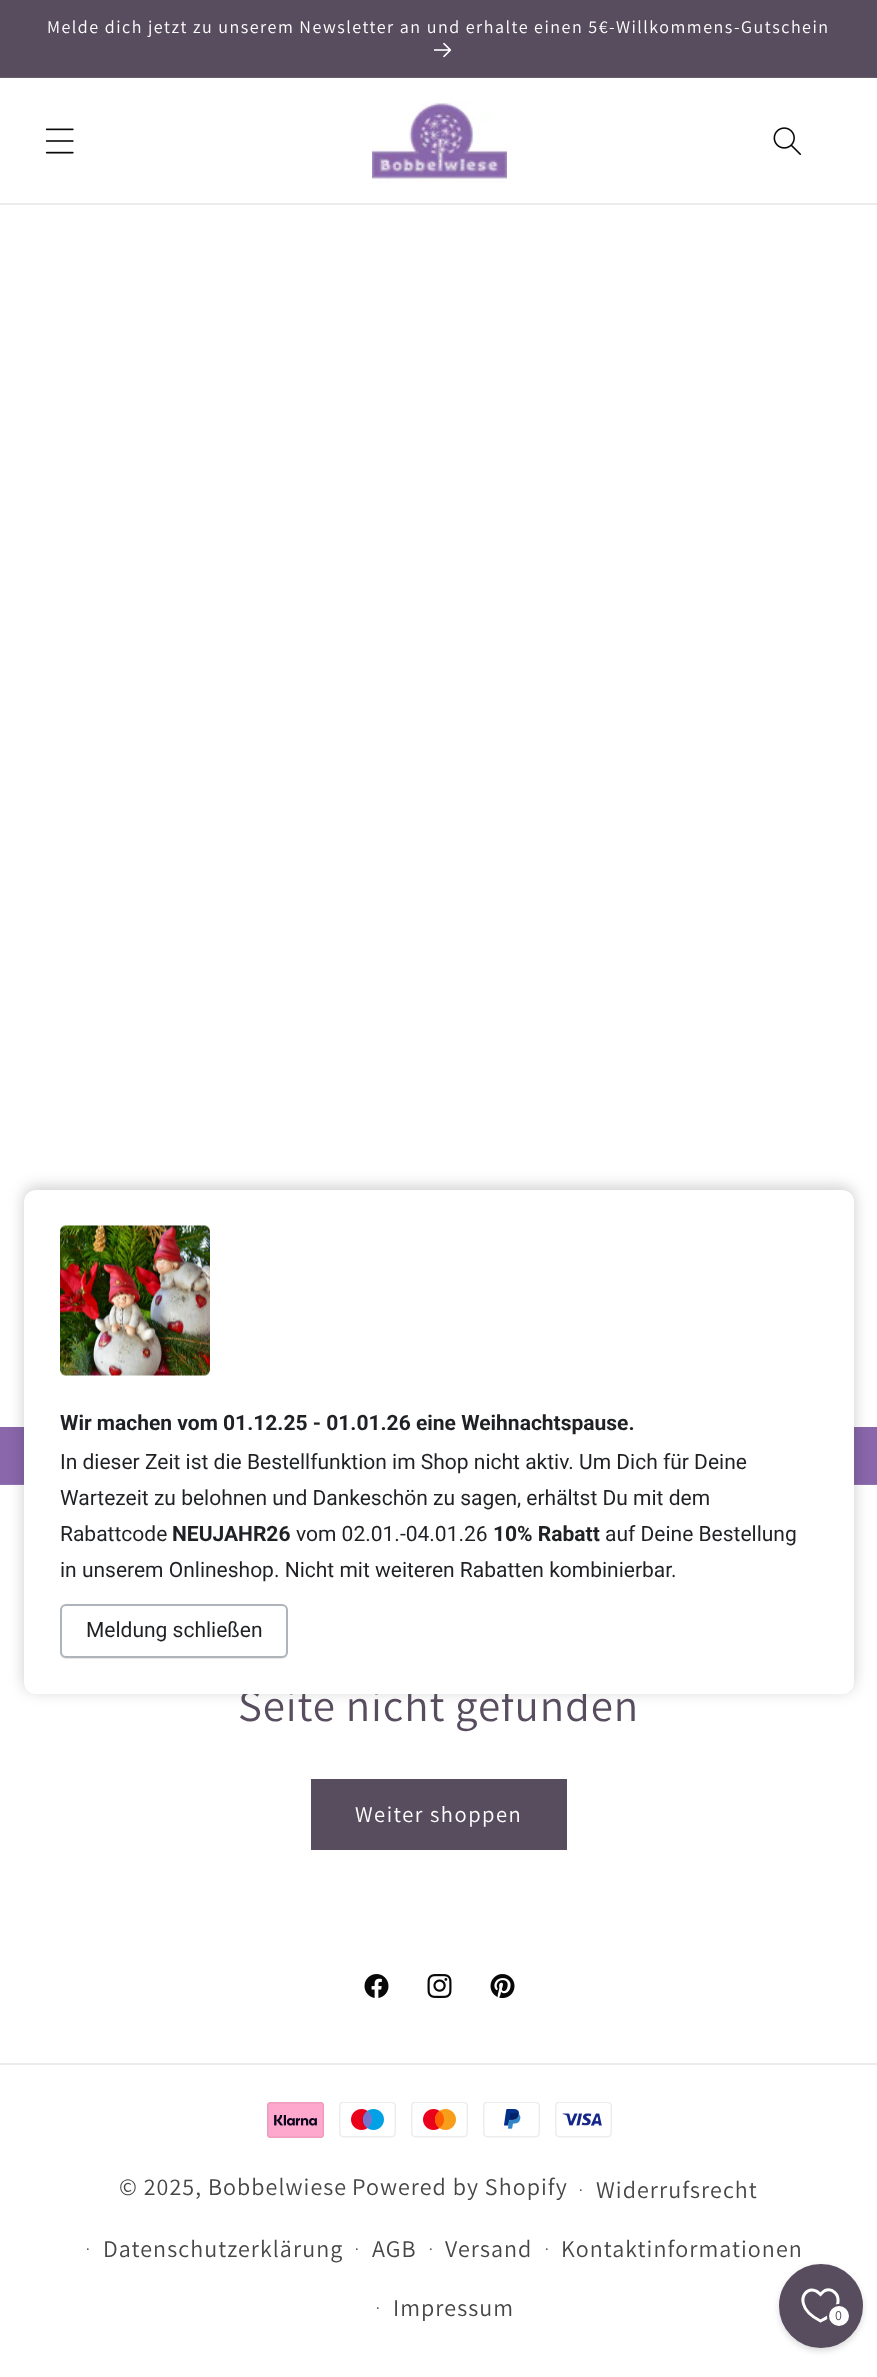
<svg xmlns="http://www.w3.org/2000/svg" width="877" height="2377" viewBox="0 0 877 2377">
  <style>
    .t1 { font: 18px Assistant; letter-spacing: 1.5px; fill: #fff; }
    .t2 { font: 45px Assistant; letter-spacing: 0.9px; fill: #584d5e; }
    .t3 { font: bold 21px Roboto; fill: #1f2124; }
    .t4 { font: 21px Roboto; fill: #1f2124; }
    .t5 { font: 22.5px Assistant; letter-spacing: 1.5px; fill: #fff; }
    .t6 { font: 24px Assistant; letter-spacing: 1.05px; fill: #464646; }
    .t7 { font: 15px Assistant; letter-spacing: 1.05px; fill: #464646; }
    .t8 { font: 14px Assistant; letter-spacing: 0.9px; fill: #584d5e; }
  </style>
  <rect width="100%" height="100%" fill="#fff"/>
  <rect x="0" y="0" width="877" height="77" fill="#584d5e"/>
  <rect x="0" y="77" width="877" height="1" fill="#655b6b"/>
  <text x="47" y="33" class="t1">Melde dich jetzt zu unserem Newsletter an und erhalte einen 5€-Willkommens-Gutschein</text>
  <image x="434" y="42" width="18" height="16" href="images/1.png"/>
  <rect x="0" y="203" width="877" height="2" fill="#ebebeb"/>
  <image x="45" y="128" width="29" height="26" href="images/2.png"/>
  <image x="372" y="102" width="135" height="81" href="images/3.png"/>
  <image x="773" y="127" width="28" height="28" href="images/4.png"/>
  <rect x="0" y="1427" width="877" height="57" fill="#8967aa"/>
  <rect x="0" y="1484" width="877" height="1" fill="#9273b1"/>
  <rect x="24" y="1187" width="830" height="504" rx="12" fill="#00000033" filter="blur(7.5px)"/>
  <text x="238" y="1721" class="t2">Seite nicht gefunden</text>
  <rect x="24" y="1190" width="830" height="504" rx="12" fill="#fff"/>
  <image x="60" y="1225" width="150" height="151" href="images/5.png"/>
  <text x="60" y="1430" class="t3">Wir machen vom 01.12.25 - 01.01.26 eine Weihnachtspause.</text>
  <text x="60" y="1469" class="t4">In dieser Zeit ist die Bestellfunktion im Shop nicht aktiv. Um Dich für Deine</text>
  <text x="60" y="1505" class="t4">Wartezeit zu belohnen und Dankeschön zu sagen, erhältst Du mit dem</text>
  <text x="60" y="1541" class="t4">Rabattcode</text>
  <text x="172" y="1541" class="t3">NEUJAHR26</text>
  <text x="296" y="1541" class="t4">vom 02.01.-04.01.26</text>
  <text x="493" y="1541" class="t3">10% Rabatt</text>
  <text x="605" y="1541" class="t4">auf Deine Bestellung</text>
  <text x="60" y="1577" class="t4">in unserem Onlineshop. Nicht mit weiteren Rabatten kombinierbar.</text>
  <rect x="60" y="1605" width="228" height="54" rx="6" fill="#1f21241a" filter="blur(0.5px)"/>
  <rect x="61" y="1605" width="226" height="52" rx="5" fill="#fff" stroke="#aeb4b9" stroke-width="2"/>
  <text x="86" y="1637" class="t4">Meldung schließen</text>
  <rect x="311" y="1779" width="256" height="71" fill="#584d5e"/>
  <text x="355" y="1822" class="t5">Weiter shoppen</text>
  <image x="364" y="1974" width="25" height="24" href="images/6.png"/>
  <image x="427" y="1974" width="25" height="24" href="images/7.png"/>
  <image x="490" y="1974" width="25" height="25" href="images/8.png"/>
  <rect x="0" y="2063" width="877" height="2" fill="#ebebeb"/>
  <image x="267" y="2102" width="57" height="36" href="images/9.png"/>
  <image x="339" y="2102" width="57" height="36" href="images/10.png"/>
  <image x="411" y="2102" width="57" height="36" href="images/11.png"/>
  <image x="483" y="2102" width="57" height="36" href="images/12.png"/>
  <image x="555" y="2102" width="57" height="36" href="images/13.png"/>
  <text x="119" y="2195" class="t6">© 2025, Bobbelwiese</text>
  <text x="352" y="2195" class="t6">Powered by Shopify</text>
  <text x="579" y="2195" class="t7">·</text>
  <text x="596" y="2198" class="t6">Widerrufsrecht</text>
  <text x="86" y="2254" class="t7">·</text>
  <text x="103" y="2257" class="t6">Datenschutzerklärung</text>
  <text x="355" y="2254" class="t7">·</text>
  <text x="372" y="2257" class="t6">AGB</text>
  <text x="429" y="2254" class="t7">·</text>
  <text x="445" y="2257" class="t6">Versand</text>
  <text x="545" y="2254" class="t7">·</text>
  <text x="561" y="2257" class="t6">Kontaktinformationen</text>
  <text x="376" y="2313" class="t7">·</text>
  <text x="393" y="2316" class="t6">Impressum</text>
  <rect x="779" y="2267" width="84" height="84" rx="42" fill="#00000026" filter="blur(3px)"/>
  <circle cx="821" cy="2306" r="40.5" fill="#584d5e" stroke="#584d5e" stroke-width="3"/>
  <path d="M820.5 2321C813.5 2317.5 805.5 2312 803.5 2304C801 2296 807 2287 816 2291C817.5 2291.5 819 2293 820.5 2294.5C822 2293 823 2291.5 825 2290.5C832.5 2287.5 839 2294.5 838 2302C837 2311 828 2317.5 820.5 2321Z" fill="none" stroke="#fff" stroke-width="3"/>
  <circle cx="839" cy="2316" r="11" fill="#fff" stroke="#584d5e" stroke-width="2"/>
  <text x="835" y="2320" class="t8">0</text>
</svg>
